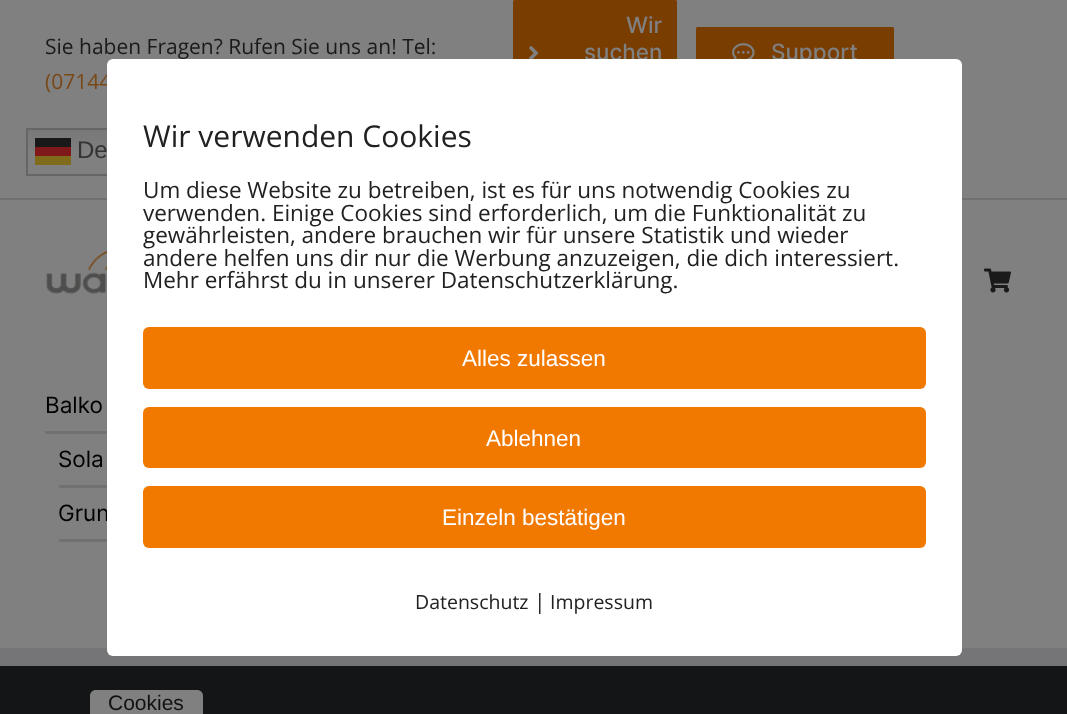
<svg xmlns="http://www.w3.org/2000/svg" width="1067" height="714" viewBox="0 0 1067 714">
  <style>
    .t1 { font: 21px Open Sans; fill: #1a1a1a; }
    .t2 { font: 21px Open Sans; fill: #794817; }
    .t3 { font: 500 22.5px Inter; fill: #808080; }
    .t4 { font: 24px Liberation Sans; fill: #333; }
    .t5 { font: 22.5px Inter; fill: #000; }
    .t6 { font: 30px Open Sans; fill: #212121; }
    .t7 { font: 22.5px Open Sans; fill: #212121; }
    .t8 { font: 22.5px Liberation Sans; fill: #fff; }
    .t9 { font: 19.5px Open Sans; fill: #212121; }
    .t10 { font: 21px Open Sans; fill: #212121; }
    .t11 { font: 21px Liberation Sans; fill: #111; }
  </style>
  <defs>
    <linearGradient id="g1" gradientUnits="userSpaceOnUse" x1="155" y1="127" x2="155" y2="176"><stop offset="0" stop-color="#787878"/><stop offset="0.7" stop-color="#808080"/></linearGradient>
    <linearGradient id="g2" gradientUnits="userSpaceOnUse" x1="155" y1="127" x2="155" y2="176"><stop offset="0" stop-color="#7e1818"/><stop offset="0.7" stop-color="#801a1a"/></linearGradient>
    <linearGradient id="g3" gradientUnits="userSpaceOnUse" x1="155" y1="127" x2="155" y2="176"><stop offset="0" stop-color="#181818"/><stop offset="0.7" stop-color="#1a1a1a"/></linearGradient>
  </defs>
  <rect width="100%" height="100%" fill="#808080"/>
  <rect x="0" y="198" width="1067" height="2" fill="#6f6f6f"/>
  <text x="45" y="54" class="t1">Sie haben Fragen? Rufen Sie uns an! Tel:</text>
  <text x="45" y="89" class="t2">(07144</text>
  <rect x="513" y="0" width="164" height="105" rx="1.5" fill="#793d00"/>
  <image x="529" y="46" width="10" height="13" href="images/1.png"/>
  <text x="626" y="33" class="t3">Wir</text>
  <text x="584" y="60" class="t3">suchen</text>
  <rect x="696" y="27" width="198" height="51" rx="1.5" fill="#793d00"/>
  <image x="732" y="43" width="23" height="16" href="images/2.png"/>
  <text x="771" y="60" class="t3">Support</text>
  <rect x="28" y="130" width="79" height="21" fill="url(#g1)"/>
  <rect x="35" y="147" width="36" height="9" fill="url(#g2)"/>
  <rect x="35" y="138" width="36" height="9" fill="url(#g3)"/>
  <rect x="27" y="129" width="257" height="46" fill="none" stroke="#666" stroke-width="2"/>
  <text x="77" y="158" class="t4">De</text>
  <rect x="35" y="156" width="36" height="9" fill="#806b1a"/>
  <image x="46" y="250" width="61" height="44" href="images/3.png"/>
  <image x="984" y="268" width="27" height="25" href="images/4.png"/>
  <text x="45" y="413" class="t5">Balko</text>
  <rect x="45" y="431" width="62" height="3" fill="#717171"/>
  <text x="58" y="467" class="t5">Sola</text>
  <rect x="59" y="485" width="48" height="3" fill="#717171"/>
  <text x="58" y="521" class="t5">Grun</text>
  <rect x="59" y="539" width="48" height="3" fill="#717171"/>
  <rect x="0" y="666" width="1067" height="48" fill="#141516"/>
  <rect x="0" y="648" width="1067" height="18" fill="#757577"/>
  <rect x="107" y="59" width="855" height="597" rx="6" fill="#fff"/>
  <text x="143" y="147" class="t6">Wir verwenden Cookies</text>
  <text x="143" y="198" class="t7">Um diese Website zu betreiben, ist es für uns notwendig Cookies zu</text>
  <text x="143" y="221" class="t7">verwenden. Einige Cookies sind erforderlich, um die Funktionalität zu</text>
  <text x="143" y="243" class="t7">gewährleisten, andere brauchen wir für unsere Statistik und wieder</text>
  <text x="143" y="266" class="t7">andere helfen uns dir nur die Werbung anzuzeigen, die dich interessiert.</text>
  <text x="143" y="288" class="t7">Mehr erfährst du in unserer Datenschutzerklärung.</text>
  <rect x="143" y="327" width="783" height="62" rx="6" fill="#f17900"/>
  <text x="462" y="366" class="t8">Alles zulassen</text>
  <rect x="143" y="407" width="783" height="61" rx="6" fill="#f17900"/>
  <text x="486" y="446" class="t8">Ablehnen</text>
  <rect x="143" y="486" width="783" height="62" rx="6" fill="#f17900"/>
  <text x="442" y="525" class="t8">Einzeln bestätigen</text>
  <text x="415" y="609" class="t9">Datenschutz</text>
  <text x="534" y="609" class="t10">|</text>
  <text x="550" y="609" class="t9">Impressum</text>
  <path d="M96 690H197C200.5 690 203 692.5 203 696V714H90V696C90 692.5 92.5 690 96 690Z" fill="#808080"/>
  <text x="108" y="710" class="t11">Cookies</text>
</svg>
